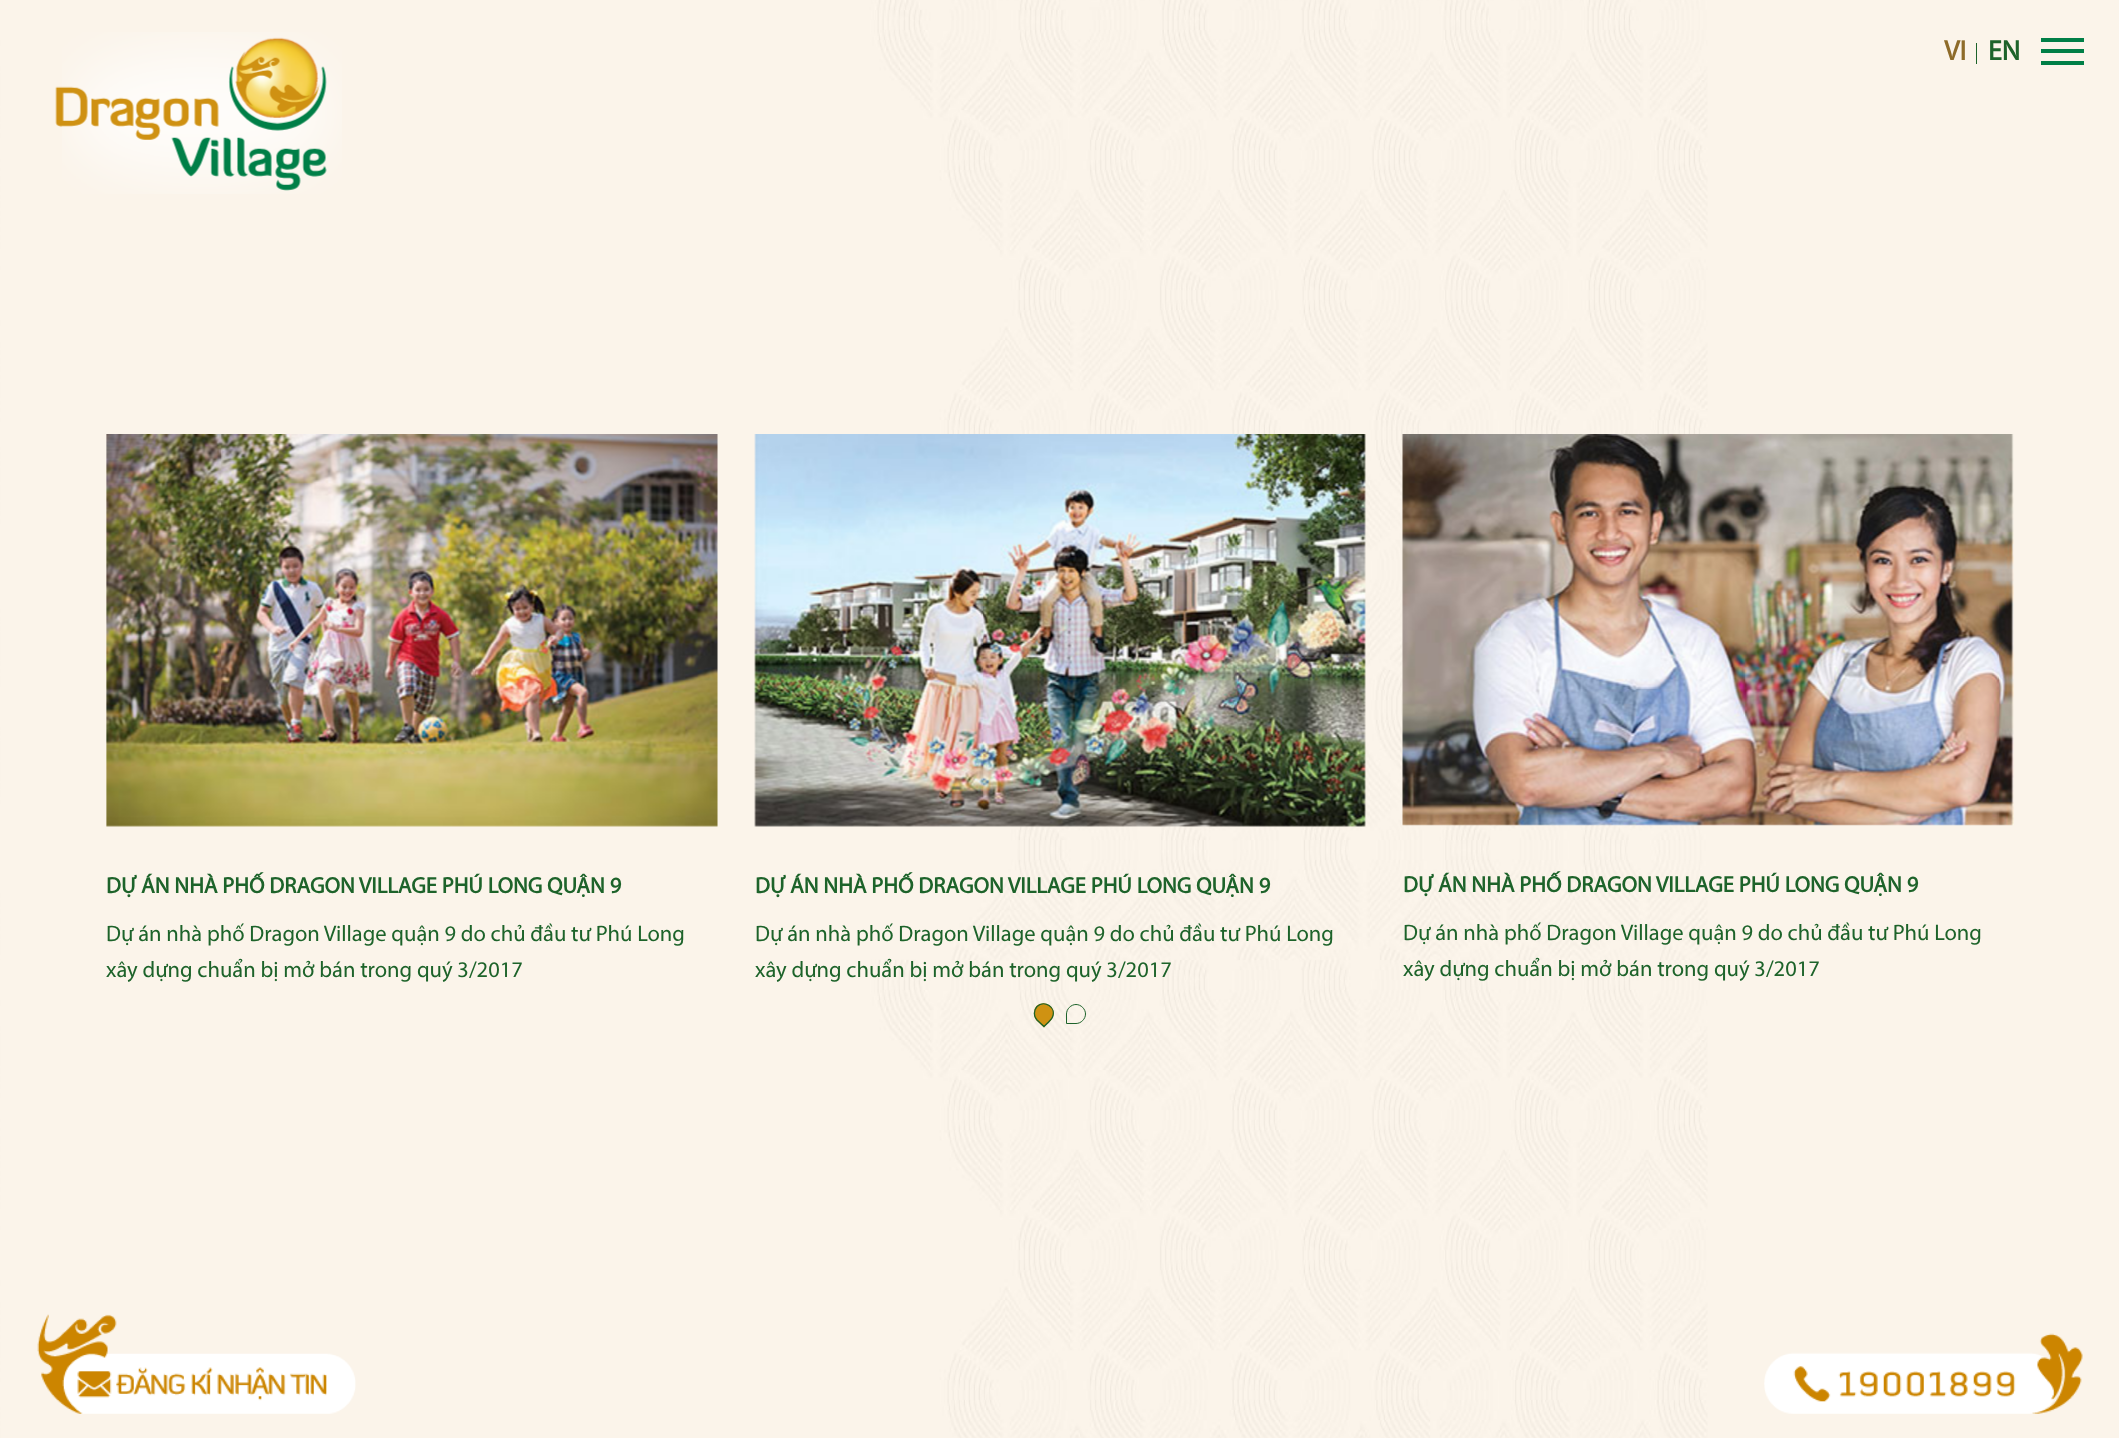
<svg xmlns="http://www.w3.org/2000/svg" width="2119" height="1438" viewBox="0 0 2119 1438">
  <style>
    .t1 { font: bold 28px Myriad; fill: #8e6b29; }
    .t2 { font: bold 28px Myriad; fill: #1d632a; }
    .t3 { font: bold 22.5px Myriad; fill: #1d632a; }
    .t4 { font: 22.5px Myriad; fill: #1d632a; }
  </style>
  <rect width="100%" height="100%" fill="#fff"/>
  <image x="0" y="0" width="2119" height="1438" href="images/1.png"/>
  <image x="62" y="32" width="280" height="162" href="images/3.png"/>
  <image x="55" y="37" width="272" height="154" href="images/2.png"/>
  <text x="1944" y="60" class="t1">VI</text>
  <rect x="1976" y="43" width="1" height="21" fill="#1d632a"/>
  <text x="1988" y="60" class="t2">EN</text>
  <rect x="2041" y="38" width="43" height="4" fill="#007f47"/>
  <rect x="2041" y="49" width="43" height="4" fill="#007f47"/>
  <rect x="2041" y="61" width="43" height="4" fill="#007f47"/>
  <image x="106" y="434" width="612" height="393" href="images/4.png"/>
  <text x="106" y="893" class="t3">DỰ ÁN NHÀ PHỐ DRAGON VILLAGE PHÚ LONG QUẬN 9</text>
  <text x="106" y="941" class="t4">Dự án nhà phố Dragon Village quận 9 do chủ đầu tư Phú Long</text>
  <text x="106" y="977" class="t4">xây dựng chuẩn bị mở bán trong quý 3/2017</text>
  <image x="754" y="434" width="612" height="393" href="images/5.png"/>
  <text x="755" y="893" class="t3">DỰ ÁN NHÀ PHỐ DRAGON VILLAGE PHÚ LONG QUẬN 9</text>
  <text x="755" y="941" class="t4">Dự án nhà phố Dragon Village quận 9 do chủ đầu tư Phú Long</text>
  <text x="755" y="977" class="t4">xây dựng chuẩn bị mở bán trong quý 3/2017</text>
  <image x="1402" y="434" width="612" height="392" href="images/6.png"/>
  <text x="1403" y="892" class="t3">DỰ ÁN NHÀ PHỐ DRAGON VILLAGE PHÚ LONG QUẬN 9</text>
  <text x="1403" y="940" class="t4">Dự án nhà phố Dragon Village quận 9 do chủ đầu tư Phú Long</text>
  <text x="1403" y="976" class="t4">xây dựng chuẩn bị mở bán trong quý 3/2017</text>
  <path d="M1036.5 1006C1044.5 998.5 1057 1007 1053 1017C1051.5 1021 1046.5 1024.5 1044 1027.5L1036.5 1020.5C1033 1016.5 1033 1010 1036.5 1006Z" fill="#cf9212"/>
  <path d="M1037 1006.5C1044.5 999.5 1056.5 1007.5 1052.5 1017C1051 1020.5 1046.5 1024 1044 1026.5L1037 1020C1033.5 1016 1033.5 1010.5 1037 1006.5Z" fill="none" stroke="#1d632a" stroke-width="1.3"/>
  <path d="M1076 1004.5C1081 1004.5 1085.5 1009 1085.5 1014C1085.5 1019 1081 1023.5 1076 1023.5H1066.5V1014C1066.5 1009 1071 1004.5 1076 1004.5Z" fill="none" stroke="#1d632a"/>
  <image x="37" y="1314" width="319" height="100" href="images/7.png"/>
  <image x="1764" y="1333" width="319" height="81" href="images/8.png"/>
</svg>
